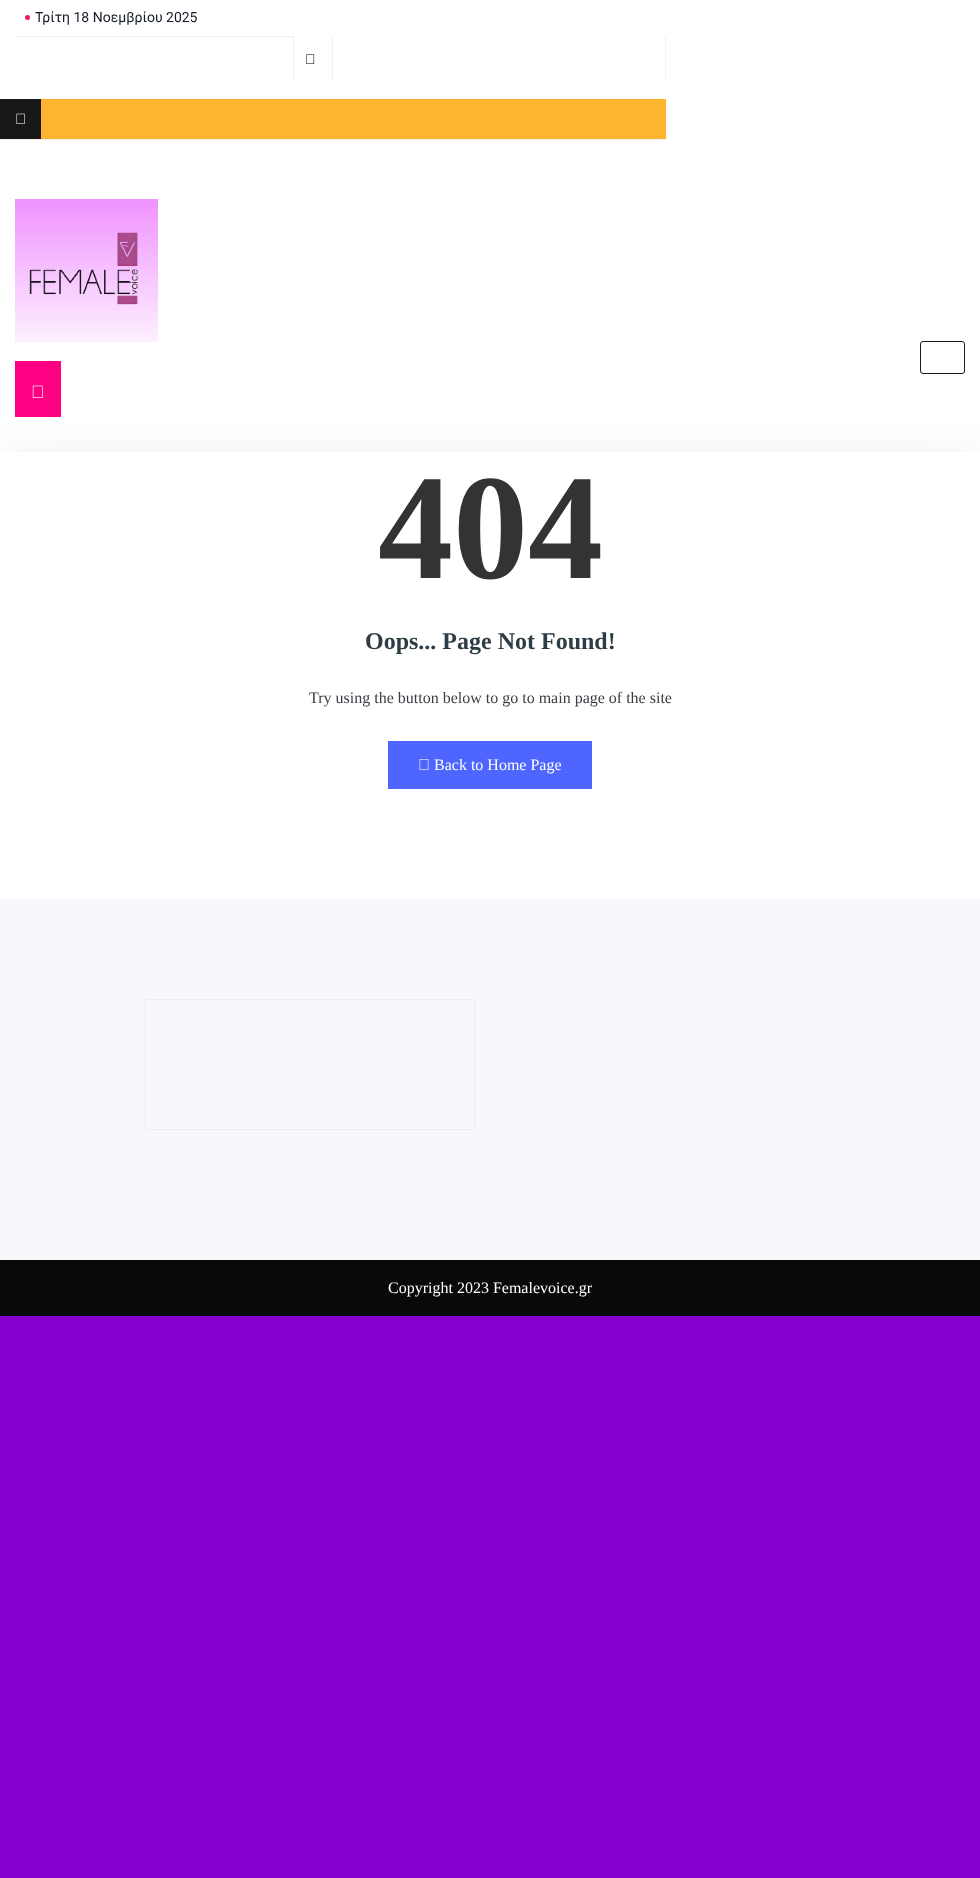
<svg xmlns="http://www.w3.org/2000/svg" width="980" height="1878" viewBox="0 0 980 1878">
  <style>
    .t1 { font: 14px Roboto; fill: #161b2a; }
    .t2 { font: bold 150px Liberation Serif; fill: #333; }
    .t3 { font: bold 24px Liberation Serif; fill: #2e3d44; }
    .t4 { font: 16px Liberation Serif; fill: #3a3d43; }
    .t5 { font: 16px Liberation Serif; fill: #fff; }
  </style>
  <rect width="100%" height="100%" fill="#8600ce"/>
  <rect x="0" y="0" width="980" height="452" fill="#fff"/>
  <rect x="15" y="36" width="279" height="1" fill="#f0f0f0"/>
  <circle cx="27.5" cy="17.5" r="2.5" fill="#e91e63"/>
  <text x="35" y="22" class="t1">Τρίτη 18 Νοεμβρίου 2025</text>
  <rect x="0" y="139" width="666" height="1" fill="#f0f0f0"/>
  <rect x="665" y="37" width="1" height="42" fill="#f0f0f0"/>
  <rect x="332" y="37" width="1" height="42" fill="#f0f0f0"/>
  <rect x="293" y="37" width="1" height="42" fill="#f0f0f0"/>
  <image x="306" y="54" width="9" height="10" href="images/1.png"/>
  <rect x="41" y="99" width="625" height="40" fill="#feb430"/>
  <rect x="0" y="99" width="41" height="40" fill="#171717"/>
  <image x="16" y="113" width="9" height="11" href="images/2.png"/>
  <image x="15" y="199" width="143" height="143" href="images/3.png"/>
  <rect x="920.5" y="341.5" width="44" height="32" rx="2.5" fill="none" stroke="#161b2a"/>
  <rect x="0" y="472" width="980" height="447" fill="#00000026" filter="blur(25px)"/>
  <rect x="15" y="361" width="46" height="56" fill="#ff0085"/>
  <image x="32" y="385" width="11" height="13" href="images/4.png"/>
  <rect x="0" y="452" width="980" height="447" fill="#fff"/>
  <text x="378" y="578" class="t2">404</text>
  <text x="365" y="649" class="t3">Oops... Page Not Found!</text>
  <text x="309" y="703" class="t4">Try using the button below to go to main page of the site</text>
  <rect x="388" y="741" width="204" height="48" fill="#4e65ff"/>
  <image x="419" y="759" width="10" height="11" href="images/5.png"/>
  <text x="434" y="770" class="t5">Back to Home Page</text>
  <rect x="0" y="899" width="980" height="361" fill="#f8f8fc"/>
  <rect x="145.5" y="999.5" width="329" height="130" fill="none" stroke="#eee"/>
  <rect x="0" y="1260" width="980" height="56" fill="#09090a"/>
  <text x="388" y="1293" class="t5">Copyright 2023 Femalevoice.gr</text>
</svg>
